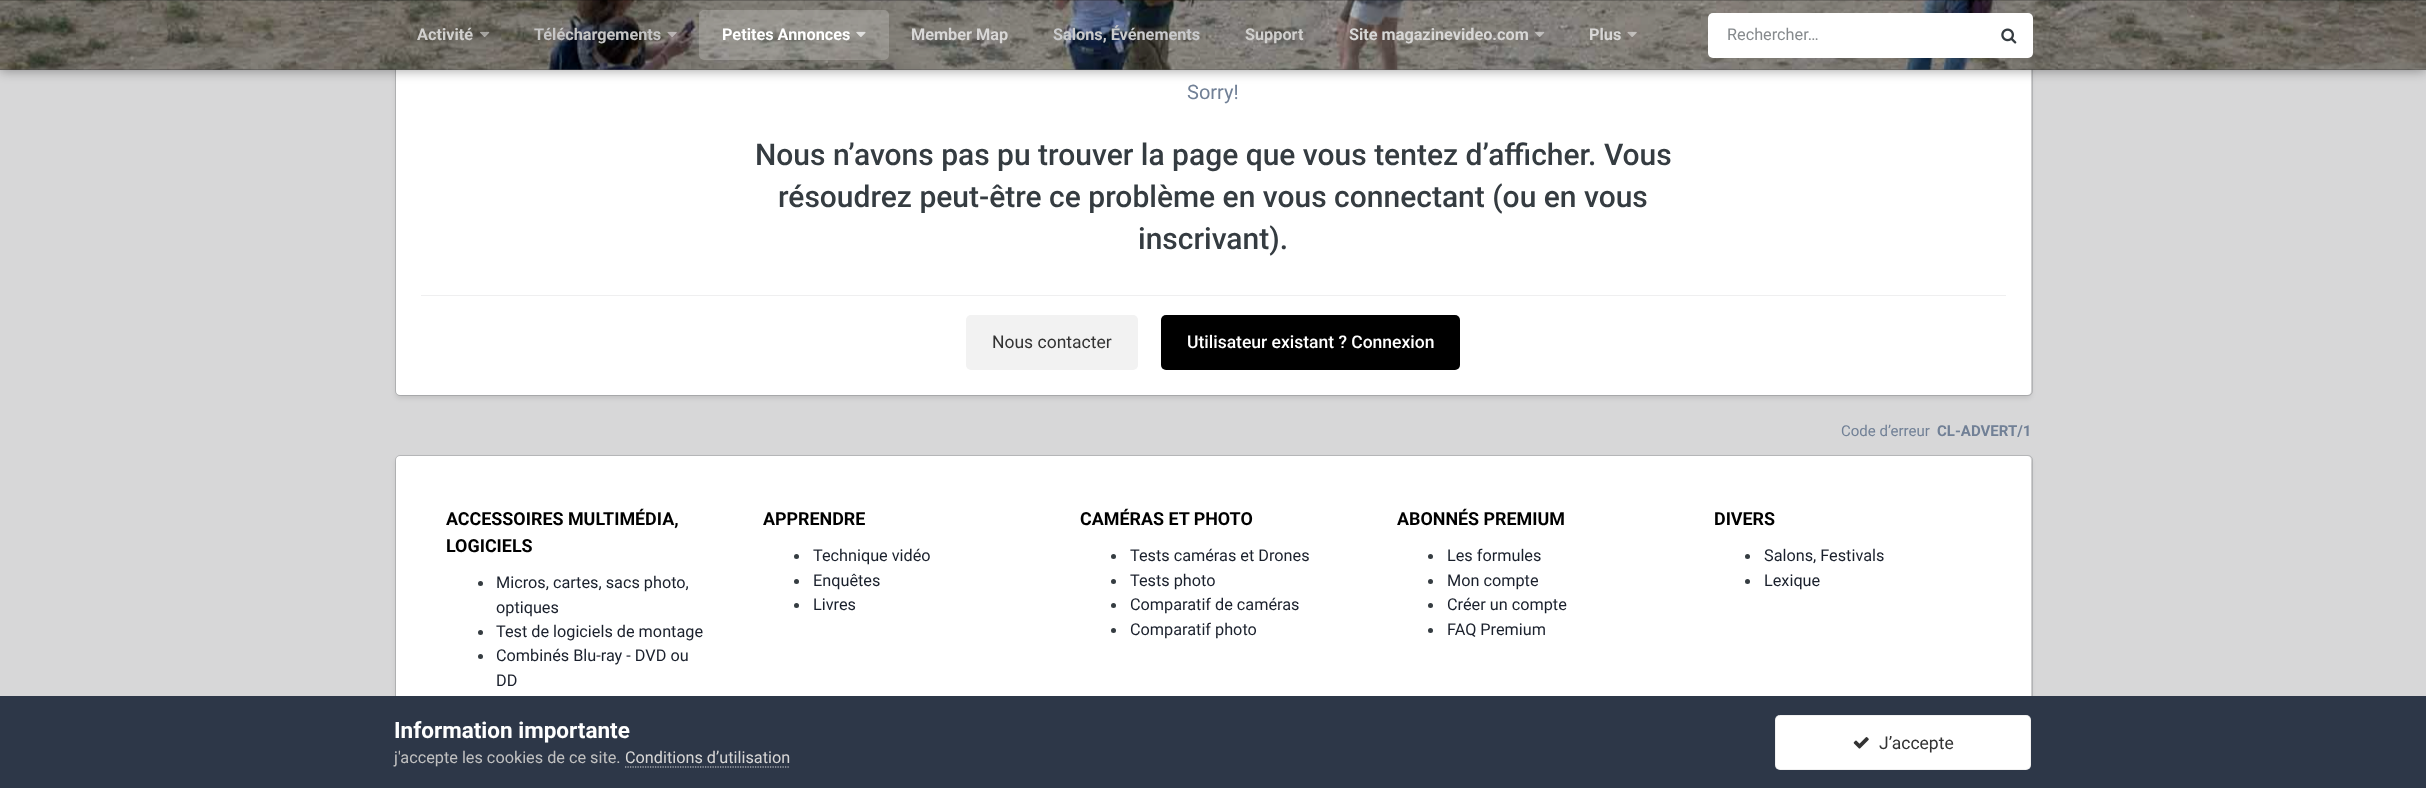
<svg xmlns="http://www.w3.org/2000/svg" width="2426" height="788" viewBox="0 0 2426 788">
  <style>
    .t1 { font: bold 16.25px Roboto; fill: #d1d0ce; }
    .t2 { font: bold 16.25px Roboto; fill: #c6c6c6; }
    .t3 { font: bold 16.25px Roboto; fill: #fff; }
    .t4 { font: bold 16.25px Roboto; fill: #d8d7d6; }
    .t5 { font: bold 16.25px Roboto; fill: #cacbcd; }
    .t6 { font: 16.25px Roboto; fill: #868a8d; }
    .t7 { font: 20px Roboto; fill: #718096; }
    .t8 { font: 500 30px Roboto; fill: #353c41; }
    .t9 { font: 17.5px Roboto; fill: #333; }
    .t10 { font: 500 17.5px Roboto; fill: #fff; }
    .t11 { font: 15px Roboto; fill: #718096; }
    .t12 { font: bold 15px Roboto; fill: #718096; }
    .t13 { font: bold 17.9px Roboto; fill: #000; }
    .t14 { font: 16.25px Roboto; fill: #1a202c; }
    .t15 { font: bold 22.5px Roboto; fill: #fff; }
    .t16 { font: 16.25px Roboto; fill: #c0c0c0; }
    .t17 { font: 16.25px Roboto; fill: #d8d7d6; }
  </style>
  <rect width="100%" height="100%" fill="#d7d7d8"/>
  <rect x="396" y="43" width="1635" height="355" rx="4" fill="#0000001a" filter="blur(2.5px)"/>
  <rect x="396" y="40" width="1635" height="355" rx="4" fill="#fff"/>
  <rect x="395.5" y="39.5" width="1637" height="356" rx="4.5" fill="none" stroke="#353c4133"/>
  <rect x="0" y="-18" width="2426" height="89" fill="#00000059" filter="blur(6px)"/>
  <image x="0" y="0" width="2426" height="70" href="images/1.png"/>
  <rect x="0" y="0" width="2426" height="70" fill="#00000033"/>
  <rect x="0" y="0" width="2426" height="1" fill="#00000033"/>
  <rect x="0" y="69" width="2426" height="1" fill="#00000033"/>
  <text x="417" y="40" class="t1">Activité</text>
  <image x="480" y="31" width="10" height="6" href="images/2.png"/>
  <text x="534" y="40" class="t2">Téléchargements</text>
  <image x="667" y="31" width="10" height="6" href="images/3.png"/>
  <rect x="699" y="10" width="190" height="50" rx="5" fill="#ffffff33"/>
  <text x="722" y="40" class="t3">Petites Annonces</text>
  <image x="856" y="31" width="10" height="6" href="images/4.png"/>
  <text x="911" y="40" class="t4">Member Map</text>
  <text x="1053" y="40" class="t5">Salons, Événements</text>
  <text x="1245" y="40" class="t1">Support</text>
  <text x="1349" y="40" class="t4">Site magazinevideo.com</text>
  <image x="1535" y="31" width="10" height="6" href="images/5.png"/>
  <text x="1589" y="40" class="t4">Plus</text>
  <image x="1627" y="31" width="10" height="6" href="images/6.png"/>
  <rect x="1708" y="13" width="325" height="45" rx="5" fill="#fff"/>
  <text x="1727" y="40" class="t6">Rechercher…</text>
  <image x="2001" y="28" width="16" height="16" href="images/7.png"/>
  <text x="1187" y="99" class="t7">Sorry!</text>
  <text x="755" y="165" class="t8">Nous n’avons pas pu trouver la page que vous tentez d’afficher. Vous</text>
  <text x="778" y="207" class="t8">résoudrez peut-être ce problème en vous connectant (ou en vous</text>
  <text x="1138" y="249" class="t8">inscrivant).</text>
  <rect x="421" y="295" width="1585" height="1" fill="#efeff0"/>
  <rect x="966" y="315" width="172" height="55" rx="5" fill="#f2f2f2"/>
  <text x="992" y="348" class="t9">Nous contacter</text>
  <rect x="1161" y="315" width="299" height="55" rx="5" fill="#000"/>
  <text x="1187" y="348" class="t10">Utilisateur existant ? Connexion</text>
  <text x="1841" y="436" class="t11">Code d’erreur</text>
  <text x="1937" y="436" class="t12">CL-ADVERT/1</text>
  <rect x="396" y="459" width="1635" height="286" rx="4" fill="#0000001a" filter="blur(2.5px)"/>
  <rect x="396" y="456" width="1635" height="287" rx="4" fill="#fff"/>
  <rect x="395.5" y="455.5" width="1637" height="288" rx="4.5" fill="none" stroke="#353c4133"/>
  <text x="446" y="525" class="t13">ACCESSOIRES MULTIMÉDIA,</text>
  <text x="446" y="552" class="t13">LOGICIELS</text>
  <circle cx="480.5" cy="583.5" r="2.5" fill="#353c41"/>
  <text x="496" y="588" class="t14">Micros, cartes, sacs photo,</text>
  <text x="496" y="613" class="t14">optiques</text>
  <circle cx="480.5" cy="632.5" r="2.5" fill="#353c41"/>
  <text x="496" y="637" class="t14">Test de logiciels de montage</text>
  <circle cx="480.5" cy="656.5" r="2.5" fill="#353c41"/>
  <text x="496" y="661" class="t14">Combinés Blu-ray - DVD ou</text>
  <text x="496" y="686" class="t14">DD</text>
  <text x="763" y="525" class="t13">APPRENDRE</text>
  <circle cx="796.5" cy="556.5" r="2.5" fill="#353c41"/>
  <text x="813" y="561" class="t14">Technique vidéo</text>
  <circle cx="796.5" cy="581.5" r="2.5" fill="#353c41"/>
  <text x="813" y="586" class="t14">Enquêtes</text>
  <circle cx="796.5" cy="605.5" r="2.5" fill="#353c41"/>
  <text x="813" y="610" class="t14">Livres</text>
  <text x="1080" y="525" class="t13">CAMÉRAS ET PHOTO</text>
  <circle cx="1113.5" cy="556.5" r="2.5" fill="#353c41"/>
  <text x="1130" y="561" class="t14">Tests caméras et Drones</text>
  <circle cx="1113.5" cy="581.5" r="2.5" fill="#353c41"/>
  <text x="1130" y="586" class="t14">Tests photo</text>
  <circle cx="1113.5" cy="605.5" r="2.5" fill="#353c41"/>
  <text x="1130" y="610" class="t14">Comparatif de caméras</text>
  <circle cx="1113.5" cy="630.5" r="2.5" fill="#353c41"/>
  <text x="1130" y="635" class="t14">Comparatif photo</text>
  <text x="1397" y="525" class="t13">ABONNÉS PREMIUM</text>
  <circle cx="1430.5" cy="556.5" r="2.5" fill="#353c41"/>
  <text x="1447" y="561" class="t14">Les formules</text>
  <circle cx="1430.5" cy="581.5" r="2.5" fill="#353c41"/>
  <text x="1447" y="586" class="t14">Mon compte</text>
  <circle cx="1430.5" cy="605.5" r="2.5" fill="#353c41"/>
  <text x="1447" y="610" class="t14">Créer un compte</text>
  <circle cx="1430.5" cy="630.5" r="2.5" fill="#353c41"/>
  <text x="1447" y="635" class="t14">FAQ Premium</text>
  <text x="1714" y="525" class="t13">DIVERS</text>
  <circle cx="1747.5" cy="556.5" r="2.5" fill="#353c41"/>
  <text x="1764" y="561" class="t14">Salons, Festivals</text>
  <circle cx="1747.5" cy="581.5" r="2.5" fill="#353c41"/>
  <text x="1764" y="586" class="t14">Lexique</text>
  <rect x="0" y="696" width="2426" height="92" fill="#2d3748"/>
  <text x="394" y="738" class="t15">Information importante</text>
  <text x="394" y="763" class="t16">j'accepte les cookies de ce site.</text>
  <text x="625" y="763" class="t17">Conditions d’utilisation</text>
  <path d="M625 767H790" fill="none" stroke="#dadada" stroke-width="1.2" stroke-dasharray="1.25 1.25"/>
  <rect x="1775" y="715" width="256" height="55" rx="5" fill="#fff"/>
  <rect x="1775.5" y="715.5" width="255" height="54" rx="4.5" fill="none" stroke="#33333312"/>
  <image x="1853" y="737" width="16" height="12" href="images/8.png"/>
  <text x="1879" y="749" class="t9">J’accepte</text>
</svg>
